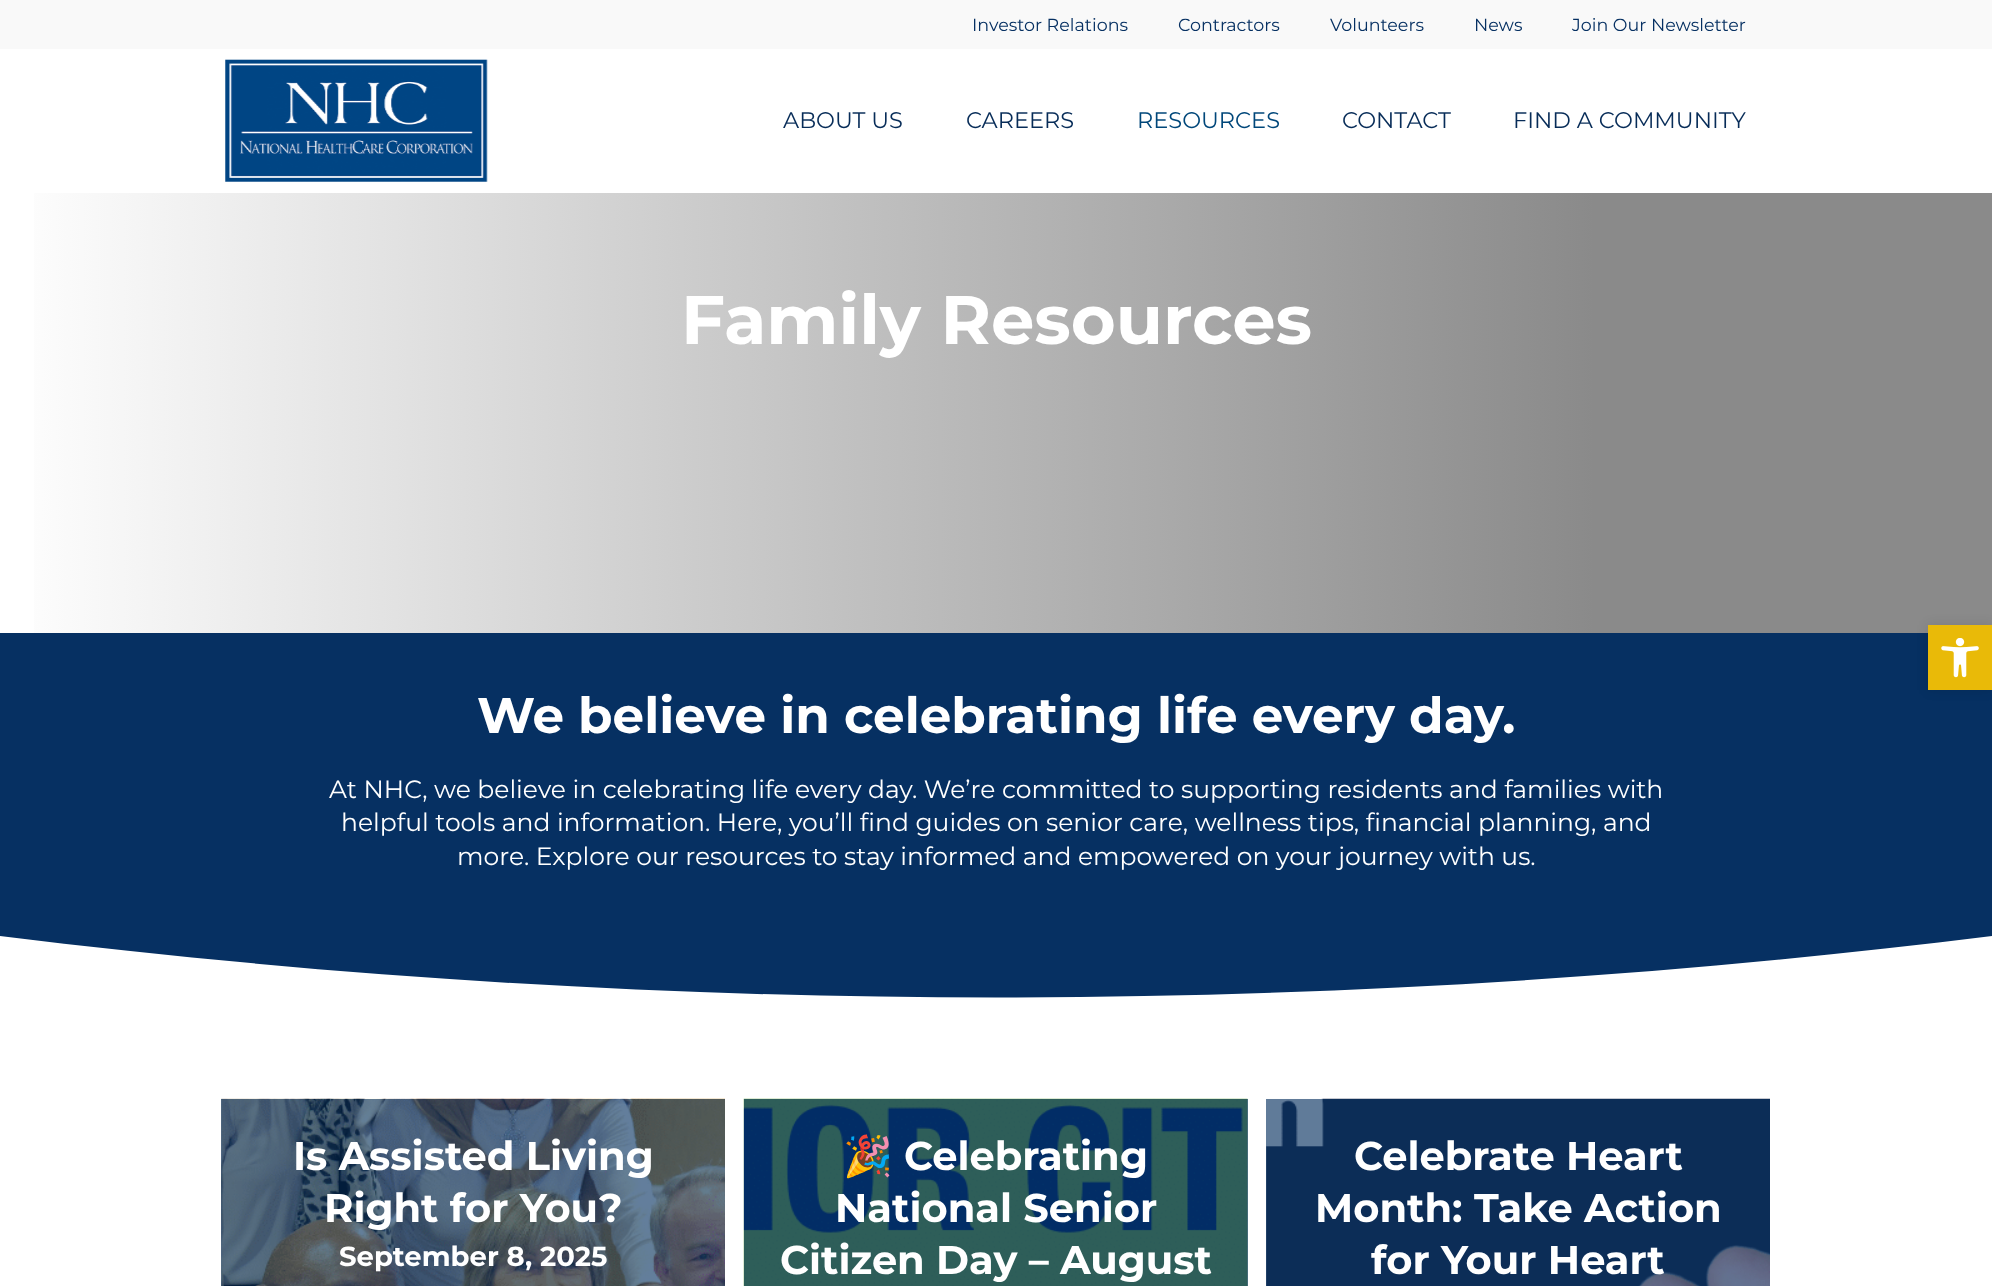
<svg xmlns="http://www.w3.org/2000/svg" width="1992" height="1286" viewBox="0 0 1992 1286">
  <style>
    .t1 { font: 17.5px Montserrat; fill: #063062; }
    .t2 { font: 22.5px Montserrat; fill: #072c58; }
    .t3 { font: 22.5px Montserrat; fill: #00477a; }
    .t4 { font: bold 68.75px Montserrat; fill: #fff; }
    .t5 { font: bold 50px Montserrat; fill: #fff; }
    .t6 { font: 25px Montserrat; fill: #fff; }
    .t7 { font: bold 40px Montserrat; fill: #fff; }
    .t8 { font: bold 27.5px Montserrat; fill: #fff; }
    .t9 { font: bold 40px Noto Color Emoji; fill: #fff; }
  </style>
  <defs>
    <linearGradient id="g1" gradientUnits="userSpaceOnUse" x1="0" y1="320" x2="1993" y2="320"><stop offset="0" stop-color="#fff"/><stop offset="0.8" stop-color="#8a8a8a"/></linearGradient>
  </defs>
  <rect width="100%" height="100%" fill="#fff"/>
  <rect x="0" y="0" width="1992" height="49" fill="#f9f9f9"/>
  <text x="972" y="31" class="t1">Investor Relations</text>
  <text x="1178" y="31" class="t1">Contractors</text>
  <text x="1330" y="31" class="t1">Volunteers</text>
  <text x="1474" y="31" class="t1">News</text>
  <text x="1572" y="31" class="t1">Join Our Newsletter</text>
  <image x="225" y="59" width="263" height="123" href="images/1.png"/>
  <text x="783" y="128" class="t2">ABOUT US</text>
  <text x="966" y="128" class="t2">CAREERS</text>
  <text x="1137" y="128" class="t3">RESOURCES</text>
  <text x="1342" y="128" class="t2">CONTACT</text>
  <text x="1513" y="128" class="t2">FIND A COMMUNITY</text>
  <rect x="34" y="193" width="1958" height="440" fill="url(#g1)"/>
  <text x="681" y="344" class="t4">Family Resources</text>
  <rect x="0" y="633" width="1992" height="365" fill="#063062"/>
  <text x="477" y="733" class="t5">We believe in celebrating life every day.</text>
  <text x="329" y="798" class="t6">At NHC, we believe in celebrating life every day. We’re committed to supporting residents and families with</text>
  <text x="341" y="831" class="t6">helpful tools and information. Here, you’ll find guides on senior care, wellness tips, financial planning, and</text>
  <text x="457" y="865" class="t6">more. Explore our resources to stay informed and empowered on your journey with us.</text>
  <path d="M0 1011H1992V936C1331 1018 661 1018 0 936Z" fill="#fff"/>
  <rect x="221" y="1104" width="504" height="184" fill="#c5c5c533" filter="blur(0.5px)"/>
  <image x="221" y="1098" width="504" height="188" href="images/2.png"/>
  <rect x="221" y="1099" width="504" height="187" fill="#032e5f9e"/>
  <text x="293" y="1170" class="t7">Is Assisted Living</text>
  <text x="324" y="1222" class="t7">Right for You?</text>
  <text x="339" y="1266" class="t8">September 8, 2025</text>
  <rect x="744" y="1104" width="504" height="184" fill="#c5c5c533" filter="blur(0.5px)"/>
  <rect x="1247" y="1099" width="1" height="5" fill="#f6f6f6"/>
  <image x="743" y="1098" width="505" height="188" href="images/3.png"/>
  <rect x="744" y="1099" width="504" height="187" fill="#032e5f9e"/>
  <text x="843" y="1170" class="t9">🎉</text>
  <text x="904" y="1170" class="t7">Celebrating</text>
  <text x="835" y="1222" class="t7">National Senior</text>
  <text x="780" y="1274" class="t7">Citizen Day – August</text>
  <rect x="1266" y="1104" width="504" height="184" fill="#c5c5c533" filter="blur(0.5px)"/>
  <image x="1266" y="1098" width="504" height="188" href="images/4.png"/>
  <rect x="1266" y="1099" width="504" height="187" fill="#032e5f9e"/>
  <text x="1354" y="1170" class="t7">Celebrate Heart</text>
  <text x="1315" y="1222" class="t7">Month: Take Action</text>
  <text x="1371" y="1274" class="t7">for Your Heart</text>
  <rect x="1928" y="625" width="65" height="65" fill="#0000001a" filter="blur(6px)"/>
  <rect x="1928" y="625" width="64" height="65" fill="#e9ba08"/>
  <image x="1941" y="638" width="38" height="40" href="images/5.png"/>
</svg>
